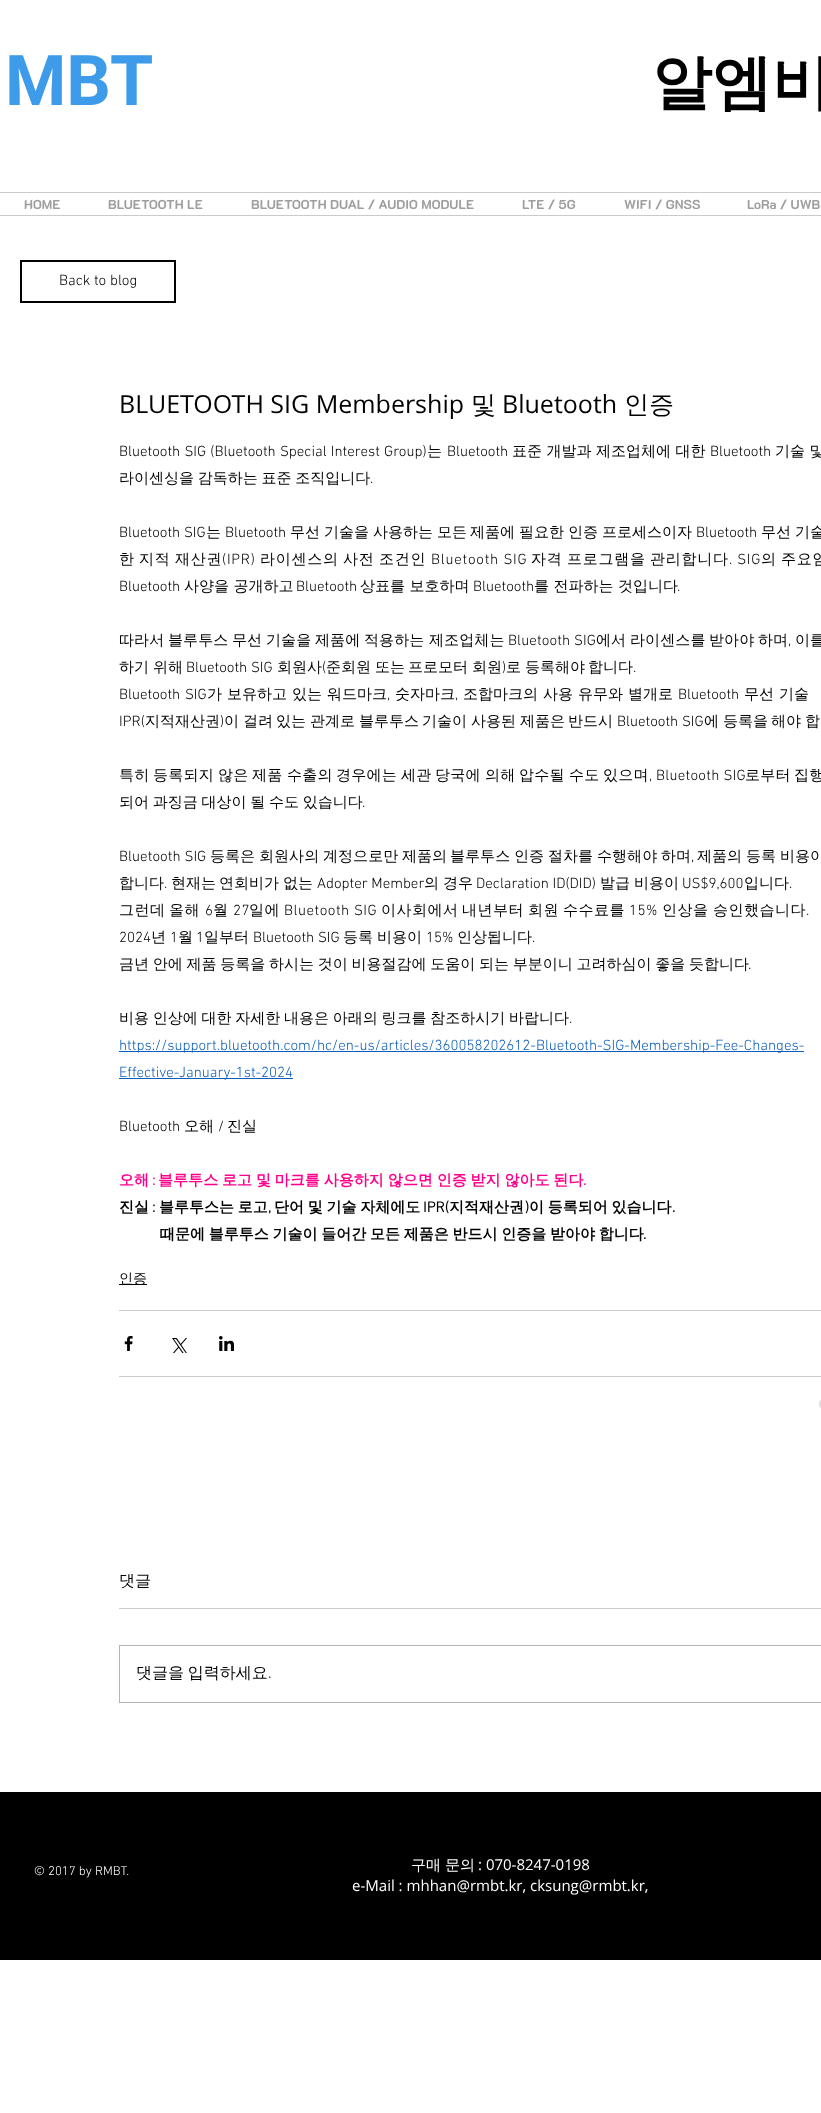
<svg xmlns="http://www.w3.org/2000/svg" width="821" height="2113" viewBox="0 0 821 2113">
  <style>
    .t1 { font: bold 70px Roboto; fill: #3d9be9; }
    .t2 { font: bold 60px WenQuanYi Zen Hei; fill: #000; }
    .t3 { font: bold 13px 'K2D'; fill: #9e9e9e; }
    .t4 { font: 300 15px 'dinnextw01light'; fill: #000; }
    .t5 { font: 25px Open Sans; fill: #000; }
    .t6 { font: 500 25px WenQuanYi Zen Hei; fill: #000; }
    .t7 { font: 500 15px WenQuanYi Zen Hei; fill: #000; }
    .t8 { font: 500 15px WenQuanYi Zen Hei; letter-spacing: 0.75px; fill: #000; }
    .t9 { font: 300 15px 'dinnextw01light'; letter-spacing: 0.75px; fill: #000; }
    .t10 { font: 500 15px WenQuanYi Zen Hei; letter-spacing: 0.1px; fill: #000; }
    .t11 { font: 300 15px 'dinnextw01light'; letter-spacing: 0.1px; fill: #000; }
    .t12 { font: 500 15px WenQuanYi Zen Hei; letter-spacing: 0.25px; fill: #000; }
    .t13 { font: 300 15px 'dinnextw01light'; letter-spacing: 0.25px; fill: #000; }
    .t14 { font: 300 15px 'dinnextw01light'; letter-spacing: 0.05px; fill: #000; }
    .t15 { font: 500 15px WenQuanYi Zen Hei; letter-spacing: 0.05px; fill: #000; }
    .t16 { font: 500 15px WenQuanYi Zen Hei; letter-spacing: 0.5px; fill: #000; }
    .t17 { font: 300 15px 'dinnextw01light'; letter-spacing: 0.5px; fill: #000; }
    .t18 { font: 300 15px 'dinnextw01light'; fill: #0d5eba; }
    .t19 { font: bold 15px WenQuanYi Zen Hei; letter-spacing: 0.05px; fill: #ff008c; }
    .t20 { font: bold 15px 'dinnextw01light'; letter-spacing: 0.05px; fill: #ff008c; }
    .t21 { font: bold 15px WenQuanYi Zen Hei; fill: #000; }
    .t22 { font: bold 15px 'dinnextw01light'; fill: #000; }
    .t23 { font: 500 14px WenQuanYi Zen Hei; fill: #000; }
    .t24 { font: 500 16px WenQuanYi Zen Hei; fill: #000; }
    .t25 { font: 300 16px 'dinnextw01light'; fill: #000; }
    .t26 { font: 300 13px 'dinnextw01light'; fill: #fff; }
    .t27 { font: 500 15px WenQuanYi Zen Hei; fill: #fff; }
    .t28 { font: 15px Open Sans; fill: #fff; }
  </style>
  <rect width="100%" height="100%" fill="#fff"/>
  <text x="5" y="105" class="t1">MBT</text>
  <text x="652" y="103" class="t2">알엠비</text>
  <rect x="0" y="192" width="821" height="1" fill="#cacaca"/>
  <rect x="0" y="215" width="821" height="1" fill="#cacaca"/>
  <text x="24" y="209" class="t3">HOME</text>
  <text x="108" y="209" class="t3">BLUETOOTH LE</text>
  <text x="251" y="209" class="t3">BLUETOOTH DUAL / AUDIO MODULE</text>
  <text x="522" y="209" class="t3">LTE / 5G</text>
  <text x="624" y="209" class="t3">WIFI / GNSS</text>
  <text x="747" y="209" class="t3">LoRa / UWB</text>
  <rect x="21" y="261" width="154" height="41" fill="none" stroke="#000" stroke-width="2"/>
  <text x="59" y="285" class="t4">Back to blog</text>
  <text x="119" y="413" class="t5">BLUETOOTH SIG Membership</text>
  <text x="471" y="413" class="t6">및</text>
  <text x="502" y="413" class="t5">Bluetooth</text>
  <text x="624" y="413" class="t6">인증</text>
  <text x="119" y="456" word-spacing="0.5" class="t4">Bluetooth SIG (Bluetooth Special Interest Group)</text>
  <text x="427" y="456" class="t7">는</text>
  <text x="447" y="456" class="t4">Bluetooth</text>
  <text x="512" y="456" class="t7">표준 개발과 제조업체에 대한</text>
  <text x="710" y="456" class="t4">Bluetooth</text>
  <text x="775" y="456" class="t7">기술 및</text>
  <text x="119" y="483" word-spacing="-0.75" class="t7">라이센싱을 감독하는 표준 조직입니다</text>
  <text x="370" y="483" class="t4">.</text>
  <text x="119" y="537" class="t4">Bluetooth SIG</text>
  <text x="206" y="537" class="t7">는</text>
  <text x="225" y="537" class="t4">Bluetooth</text>
  <text x="290" y="537" class="t7">무선</text>
  <text x="324" y="537" class="t7">기술을</text>
  <text x="373" y="537" class="t7">사용하는</text>
  <text x="437" y="537" class="t7">모든</text>
  <text x="470" y="537" class="t7">제품에</text>
  <text x="519" y="537" class="t7">필요한</text>
  <text x="568" y="537" class="t7">인증</text>
  <text x="602" y="537" class="t7">프로세스이자</text>
  <text x="696" y="537" class="t4">Bluetooth</text>
  <text x="761" y="537" class="t7">무선</text>
  <text x="795" y="537" class="t7">기술</text>
  <text x="119" y="564" class="t8">한</text>
  <text x="139" y="564" class="t8">지적</text>
  <text x="175" y="564" class="t8">재산권</text>
  <text x="222" y="564" class="t9">(IPR)</text>
  <text x="260" y="564" class="t8">라이센스의</text>
  <text x="343" y="564" class="t8">사전</text>
  <text x="379" y="564" class="t8">조건인</text>
  <text x="431" y="564" class="t9">Bluetooth SIG</text>
  <text x="531" y="564" class="t8">자격</text>
  <text x="567" y="564" class="t8">프로그램을</text>
  <text x="650" y="564" class="t8">관리합니다</text>
  <text x="729" y="564" class="t9">. SIG</text>
  <text x="761" y="564" class="t8">의</text>
  <text x="781" y="564" class="t8">주요임</text>
  <text x="119" y="591" class="t4">Bluetooth</text>
  <text x="184" y="591" class="t7">사양을 공개하고</text>
  <text x="296" y="591" class="t4">Bluetooth</text>
  <text x="360" y="591" class="t7">상표를 보호하며</text>
  <text x="473" y="591" class="t4">Bluetooth</text>
  <text x="534" y="591" class="t7">를 전파하는 것입니다</text>
  <text x="677" y="591" class="t4">.</text>
  <text x="119" y="645" class="t10">따라서</text>
  <text x="168" y="645" class="t10">블루투스</text>
  <text x="232" y="645" class="t10">무선</text>
  <text x="266" y="645" class="t10">기술을</text>
  <text x="315" y="645" class="t10">제품에</text>
  <text x="364" y="645" class="t10">적용하는</text>
  <text x="429" y="645" class="t10">제조업체는</text>
  <text x="508" y="645" class="t11">Bluetooth SIG</text>
  <text x="596" y="645" class="t10">에서</text>
  <text x="630" y="645" class="t10">라이센스를</text>
  <text x="709" y="645" class="t10">받아야</text>
  <text x="758" y="645" class="t10">하며</text>
  <text x="788" y="645" class="t11">,</text>
  <text x="795" y="645" class="t10">이를</text>
  <text x="119" y="672" class="t7">하기</text>
  <text x="153" y="672" class="t7">위해</text>
  <text x="186" y="672" class="t4">Bluetooth SIG</text>
  <text x="277" y="672" class="t7">회원사</text>
  <text x="322" y="672" class="t4">(</text>
  <text x="326" y="672" class="t7">준회원</text>
  <text x="375" y="672" class="t7">또는</text>
  <text x="408" y="672" class="t7">프로모터</text>
  <text x="472" y="672" class="t7">회원</text>
  <text x="502" y="672" class="t4">)</text>
  <text x="506" y="672" class="t7">로</text>
  <text x="525" y="672" class="t7">등록해야</text>
  <text x="588" y="672" class="t7">합니다</text>
  <text x="633" y="672" class="t4">.</text>
  <text x="119" y="699" word-spacing="1" class="t4">Bluetooth SIG</text>
  <text x="207" y="699" class="t7">가</text>
  <text x="227" y="699" class="t7">보유하고</text>
  <text x="292" y="699" class="t7">있는</text>
  <text x="327" y="699" class="t7">워드마크</text>
  <text x="387" y="699" class="t4">,</text>
  <text x="395" y="699" class="t7">숫자마크</text>
  <text x="455" y="699" class="t4">,</text>
  <text x="463" y="699" class="t7">조합마크의</text>
  <text x="543" y="699" class="t7">사용</text>
  <text x="578" y="699" class="t7">유무와</text>
  <text x="628" y="699" class="t7">별개로</text>
  <text x="678" y="699" class="t4">Bluetooth</text>
  <text x="744" y="699" class="t7">무선</text>
  <text x="779" y="699" class="t7">기술</text>
  <text x="119" y="726" class="t4">IPR(</text>
  <text x="145" y="726" class="t7">지적재산권</text>
  <text x="220" y="726" class="t4">)</text>
  <text x="224" y="726" class="t7">이</text>
  <text x="243" y="726" class="t7">걸려</text>
  <text x="276" y="726" class="t7">있는</text>
  <text x="310" y="726" class="t7">관계로</text>
  <text x="359" y="726" class="t7">블루투스</text>
  <text x="422" y="726" class="t7">기술이</text>
  <text x="471" y="726" class="t7">사용된</text>
  <text x="520" y="726" class="t7">제품은</text>
  <text x="568" y="726" class="t7">반드시</text>
  <text x="617" y="726" class="t4">Bluetooth SIG</text>
  <text x="704" y="726" class="t7">에</text>
  <text x="723" y="726" class="t7">등록을</text>
  <text x="771" y="726" class="t7">해야</text>
  <text x="805" y="726" class="t7">합</text>
  <text x="119" y="780" class="t12">특히</text>
  <text x="153" y="780" class="t12">등록되지</text>
  <text x="218" y="780" class="t12">않은</text>
  <text x="252" y="780" class="t12">제품</text>
  <text x="287" y="780" class="t12">수출의</text>
  <text x="336" y="780" class="t12">경우에는</text>
  <text x="401" y="780" class="t12">세관</text>
  <text x="435" y="780" class="t12">당국에</text>
  <text x="485" y="780" class="t12">의해</text>
  <text x="519" y="780" class="t12">압수될</text>
  <text x="569" y="780" class="t12">수도</text>
  <text x="603" y="780" class="t12">있으며</text>
  <text x="649" y="780" class="t13">, Bluetooth SIG</text>
  <text x="745" y="780" class="t12">로부터</text>
  <text x="794" y="780" class="t12">집행</text>
  <text x="119" y="807" word-spacing="-0.75" class="t7">되어 과징금 대상이 될 수도 있습니다</text>
  <text x="362" y="807" class="t4">.</text>
  <text x="119" y="861" class="t14">Bluetooth SIG</text>
  <text x="210" y="861" class="t15">등록은</text>
  <text x="259" y="861" class="t15">회원사의</text>
  <text x="323" y="861" class="t15">계정으로만</text>
  <text x="402" y="861" class="t15">제품의</text>
  <text x="450" y="861" class="t15">블루투스</text>
  <text x="514" y="861" class="t15">인증</text>
  <text x="548" y="861" class="t15">절차를</text>
  <text x="597" y="861" class="t15">수행해야</text>
  <text x="661" y="861" class="t15">하며</text>
  <text x="691" y="861" class="t14">,</text>
  <text x="697" y="861" class="t15">제품의</text>
  <text x="746" y="861" class="t15">등록</text>
  <text x="780" y="861" class="t15">비용이</text>
  <text x="119" y="888" class="t7">합니다</text>
  <text x="164" y="888" class="t4">.</text>
  <text x="171" y="888" class="t7">현재는</text>
  <text x="219" y="888" class="t7">연회비가</text>
  <text x="283" y="888" class="t7">없는</text>
  <text x="317" y="888" class="t4">Adopter Member</text>
  <text x="424" y="888" class="t7">의</text>
  <text x="443" y="888" class="t7">경우</text>
  <text x="476" y="888" class="t4">Declaration ID(DID)</text>
  <text x="600" y="888" class="t7">발급</text>
  <text x="634" y="888" class="t7">비용이</text>
  <text x="682" y="888" class="t4">US$9,600</text>
  <text x="744" y="888" class="t7">입니다</text>
  <text x="789" y="888" class="t4">.</text>
  <text x="119" y="915" class="t16">그런데</text>
  <text x="169" y="915" class="t16">올해</text>
  <text x="205" y="915" class="t17">6</text>
  <text x="213" y="915" class="t16">월</text>
  <text x="233" y="915" class="t17">27</text>
  <text x="249" y="915" class="t16">일에</text>
  <text x="284" y="915" class="t17">Bluetooth SIG</text>
  <text x="381" y="915" class="t16">이사회에서</text>
  <text x="462" y="915" class="t16">내년부터</text>
  <text x="528" y="915" class="t16">회원</text>
  <text x="563" y="915" class="t16">수수료를</text>
  <text x="629" y="915" class="t17">15%</text>
  <text x="662" y="915" class="t16">인상을</text>
  <text x="713" y="915" class="t16">승인했습니다</text>
  <text x="806" y="915" class="t17">.</text>
  <text x="119" y="942" class="t4">2024</text>
  <text x="151" y="942" class="t7">년</text>
  <text x="170" y="942" class="t4">1</text>
  <text x="178" y="942" class="t7">월</text>
  <text x="196" y="942" class="t4">1</text>
  <text x="204" y="942" class="t7">일부터</text>
  <text x="253" y="942" class="t4">Bluetooth SIG</text>
  <text x="343" y="942" class="t7">등록</text>
  <text x="377" y="942" class="t7">비용이</text>
  <text x="426" y="942" class="t4">15%</text>
  <text x="457" y="942" class="t7">인상됩니다</text>
  <text x="532" y="942" class="t4">.</text>
  <text x="119" y="969" word-spacing="-0.75" class="t7">금년 안에 제품 등록을 하시는 것이 비용절감에 도움이 되는 부분이니 고려하심이 좋을 듯합니다</text>
  <text x="748" y="969" class="t4">.</text>
  <text x="119" y="1023" word-spacing="-0.75" class="t7">비용 인상에 대한 자세한 내용은 아래의 링크를 참조하시기 바랍니다</text>
  <text x="569" y="1023" class="t4">.</text>
  <rect x="119" y="1051" width="685" height="1" fill="#0d5eba"/>
  <text x="119" y="1050" class="t18">https://support.bluetooth.com/hc/en-us/articles/360058202612-Bluetooth-SIG-Membership-Fee-Changes-</text>
  <rect x="119" y="1078" width="174" height="1" fill="#0d5eba"/>
  <text x="119" y="1077" class="t18">Effective-January-1st-2024</text>
  <text x="119" y="1131" class="t4">Bluetooth</text>
  <text x="184" y="1131" class="t7">오해</text>
  <text x="218" y="1131" class="t4">/</text>
  <text x="227" y="1131" class="t7">진실</text>
  <text x="119" y="1185" class="t19">오해</text>
  <text x="152" y="1185" class="t20">:</text>
  <text x="158" y="1185" word-spacing="-0.75" class="t19">블루투스 로고 및 마크를 사용하지 않으면 인증 받지 않아도 된다</text>
  <text x="583" y="1185" class="t20">.</text>
  <text x="119" y="1212" class="t21">진실</text>
  <text x="152" y="1212" class="t22">:</text>
  <text x="159" y="1212" word-spacing="-0.75" class="t21">블루투스는 로고</text>
  <text x="268" y="1212" class="t22">,</text>
  <text x="274" y="1212" word-spacing="-0.75" class="t21">단어 및 기술 자체에도</text>
  <text x="423" y="1212" class="t22">IPR(</text>
  <text x="449" y="1212" class="t21">지적재산권</text>
  <text x="525" y="1212" class="t22">)</text>
  <text x="529" y="1212" word-spacing="-0.75" class="t21">이 등록되어 있습니다</text>
  <text x="672" y="1212" class="t22">.</text>
  <text x="160" y="1239" word-spacing="-0.75" class="t21">때문에 블루투스 기술이 들어간 모든 제품은 반드시 인증을 받아야 합니다</text>
  <text x="643" y="1239" class="t22">.</text>
  <rect x="119" y="1284" width="28" height="1" fill="#000"/>
  <text x="119" y="1283" class="t23">인증</text>
  <rect x="119" y="1310" width="702" height="1" fill="#ccc"/>
  <image x="124" y="1336" width="9" height="15" href="images/1.png"/>
  <image x="172" y="1338" width="15" height="15" href="images/2.png"/>
  <image x="219" y="1336" width="15" height="15" href="images/3.png"/>
  <rect x="119" y="1376" width="702" height="1" fill="#ccc"/>
  <rect x="819" y="1399" width="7" height="10" rx="5" fill="#e0e0e0"/>
  <text x="119" y="1586" class="t24">댓글</text>
  <rect x="119" y="1608" width="702" height="1" fill="#ccc"/>
  <rect x="119.5" y="1645.5" width="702" height="57" fill="none" stroke="#b3b3b3"/>
  <text x="136" y="1678" word-spacing="-1" class="t24">댓글을 입력하세요</text>
  <text x="268" y="1678" class="t25">.</text>
  <rect x="0" y="1792" width="821" height="168" fill="#000"/>
  <text x="34" y="1875" class="t26">© 2017 by RMBT.</text>
  <text x="411" y="1870" class="t27">구매</text>
  <text x="445" y="1870" class="t27">문의</text>
  <text x="478" y="1870" class="t28">: 070-8247-0198</text>
  <text x="352" y="1891" class="t28">e-Mail : mhhan@rmbt.kr, cksung@rmbt.kr,</text>
</svg>
